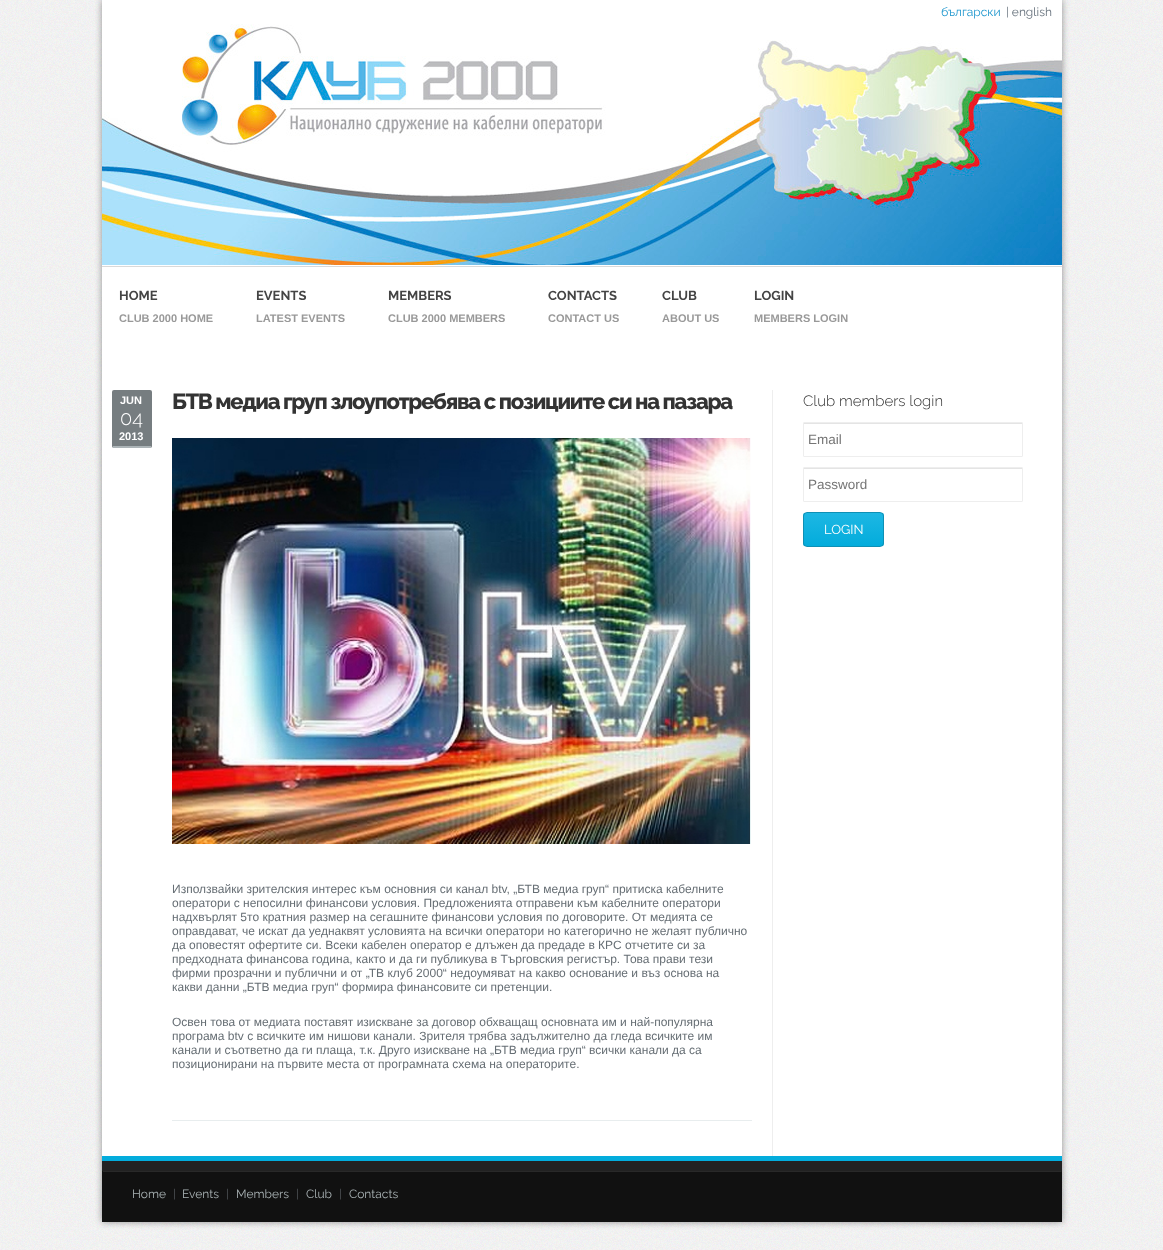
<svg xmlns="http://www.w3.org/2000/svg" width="1163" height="1250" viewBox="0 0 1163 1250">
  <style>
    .t1 { font: 12px Raleway; fill: #1b95cd; }
    .t2 { font: 12px Raleway; fill: #65707b; }
    .t3 { font: bold 13px Raleway; fill: #444; }
    .t4 { font: bold 11px Liberation Sans; fill: #999; }
    .t5 { font: bold 11px Liberation Sans; fill: #fff; }
    .t6 { font: 300 20px Raleway; fill: #fff; }
    .t7 { font: 800 22px Raleway; letter-spacing: -1.32px; fill: #333; }
    .t8 { font: 12px Liberation Sans; fill: #666e74; }
    .t9 { font: 300 15px Raleway; fill: #333; }
    .t10 { font: 13.5px Liberation Sans; fill: #757575; }
    .t11 { font: 13px Raleway; fill: #fff; }
    .t12 { font: 12px Raleway; fill: #a9b2b4; }
    .t13 { font: 12px Raleway; fill: #55595d; }
  </style>
  <defs>
    <clipPath id="clip1"><rect x="803" y="512" width="81" height="35" rx="4"/></clipPath>
    <linearGradient id="g1" gradientUnits="userSpaceOnUse" x1="844" y1="513" x2="844" y2="546"><stop offset="0" stop-color="#1db7e3"/><stop offset="1" stop-color="#03acdc"/></linearGradient>
  </defs>
  <rect width="100%" height="100%" fill="#fff"/>
  <image x="0" y="0" width="1163" height="1250" href="images/1.png"/>
  <rect x="102" y="0" width="960" height="1222" fill="#00000066" filter="blur(3.5px)"/>
  <rect x="102" y="0" width="960" height="1156" fill="#fff"/>
  <text x="941" y="16" class="t1">български</text>
  <text x="1006" y="16" class="t2">| english</text>
  <image x="102" y="24" width="960" height="241" href="images/2.png"/>
  <rect x="102" y="266" width="960" height="1" fill="#d9d9d9"/>
  <text x="119" y="300" class="t3">HOME</text>
  <text x="119" y="322" class="t4">CLUB 2000 HOME</text>
  <text x="256" y="300" class="t3">EVENTS</text>
  <text x="256" y="322" class="t4">LATEST EVENTS</text>
  <text x="388" y="300" class="t3">MEMBERS</text>
  <text x="388" y="322" class="t4">CLUB 2000 MEMBERS</text>
  <text x="548" y="300" class="t3">CONTACTS</text>
  <text x="548" y="322" class="t4">CONTACT US</text>
  <text x="662" y="300" class="t3">CLUB</text>
  <text x="662" y="322" class="t4">ABOUT US</text>
  <text x="754" y="300" class="t3">LOGIN</text>
  <text x="754" y="322" class="t4">MEMBERS LOGIN</text>
  <rect x="772" y="390" width="1" height="766" fill="#eee"/>
  <rect x="112" y="390" width="40" height="58" rx="2" fill="#767d80"/>
  <rect x="113" y="446" width="38" height="2" fill="#acb4b7"/>
  <text x="120" y="404" class="t5">JUN</text>
  <text x="120" y="425" class="t6">04</text>
  <text x="119" y="440" class="t5">2013</text>
  <text x="172" y="409" class="t7">БТВ медиа груп злоупотребява с позициите си на пазара</text>
  <image x="172" y="438" width="579" height="406" href="images/3.png"/>
  <text x="172" y="893" class="t8">Използвайки зрителския интерес към основния си канал btv, „БТВ медиа груп“ притиска кабелните</text>
  <text x="172" y="907" class="t8">оператори с непосилни финансови условия. Предложенията отправени към кабелните оператори</text>
  <text x="172" y="921" class="t8">надхвърлят 5то кратния размер на сегашните финансови условия по договорите. От медията се</text>
  <text x="172" y="935" class="t8">оправдават, че искат да уеднаквят условията на всички оператори но категорично не желаят публично</text>
  <text x="172" y="949" class="t8">да оповестят офертите си. Всеки кабелен оператор е длъжен да предаде в КРС отчетите си за</text>
  <text x="172" y="963" class="t8">предходната финансова година, както и да ги публикува в Търговския регистър. Това прави тези</text>
  <text x="172" y="977" class="t8">фирми прозрачни и публични и от „ТВ клуб 2000“ недоумяват на какво основание и въз основа на</text>
  <text x="172" y="991" class="t8">какви данни „БТВ медиа груп“ формира финансовите си претенции.</text>
  <text x="172" y="1026" class="t8">Освен това от медиата поставят изискване за договор обхващащ основната им и най-популярна</text>
  <text x="172" y="1040" class="t8">програма btv с всичките им нишови канали. Зрителя трябва задължително да гледа всичките им</text>
  <text x="172" y="1054" class="t8">канали и съответно да ги плаща, т.к. Друго изискване на „БТВ медиа груп“ всички канали да са</text>
  <text x="172" y="1068" class="t8">позиционирани на първите места от програмната схема на операторите.</text>
  <rect x="172" y="1120" width="580" height="1" fill="#e8edee"/>
  <text x="803" y="406" class="t9">Club members login</text>
  <rect x="804" y="423" width="218" height="1" fill="#e4e4e4"/>
  <rect x="803.5" y="422.5" width="219" height="34" rx="0.5" fill="none" stroke="#eee"/>
  <text x="808" y="444" class="t10">Email</text>
  <rect x="804" y="468" width="218" height="1" fill="#e4e4e4"/>
  <rect x="803.5" y="467.5" width="219" height="34" rx="0.5" fill="none" stroke="#eee"/>
  <text x="808" y="489" class="t10">Password</text>
  <g clip-path="url(#clip1)">
    <rect x="803" y="513" width="81" height="33" fill="url(#g1)"/>
  </g>
  <rect x="803.5" y="512.5" width="80" height="34" rx="3.5" fill="none" stroke="#0e90b5"/>
  <text x="824" y="534" class="t11">LOGIN</text>
  <rect x="102" y="1161" width="960" height="12" fill="#222"/>
  <rect x="102" y="1156" width="960" height="5" fill="#03acdc"/>
  <path d="M103 1171H1060C1061 1171 1062 1172 1062 1173V1222H102V1172C102 1171.5 102.5 1171 103 1171Z" fill="#111"/>
  <rect x="103" y="1171" width="958" height="1" fill="#292929"/>
  <text x="132" y="1198" class="t12">Home</text>
  <text x="173" y="1198" class="t13">|</text>
  <text x="182" y="1198" class="t12">Events</text>
  <text x="226" y="1198" class="t13">|</text>
  <text x="236" y="1198" class="t12">Members</text>
  <text x="296" y="1198" class="t13">|</text>
  <text x="306" y="1198" class="t12">Club</text>
  <text x="339" y="1198" class="t13">|</text>
  <text x="349" y="1198" class="t12">Contacts</text>
</svg>
